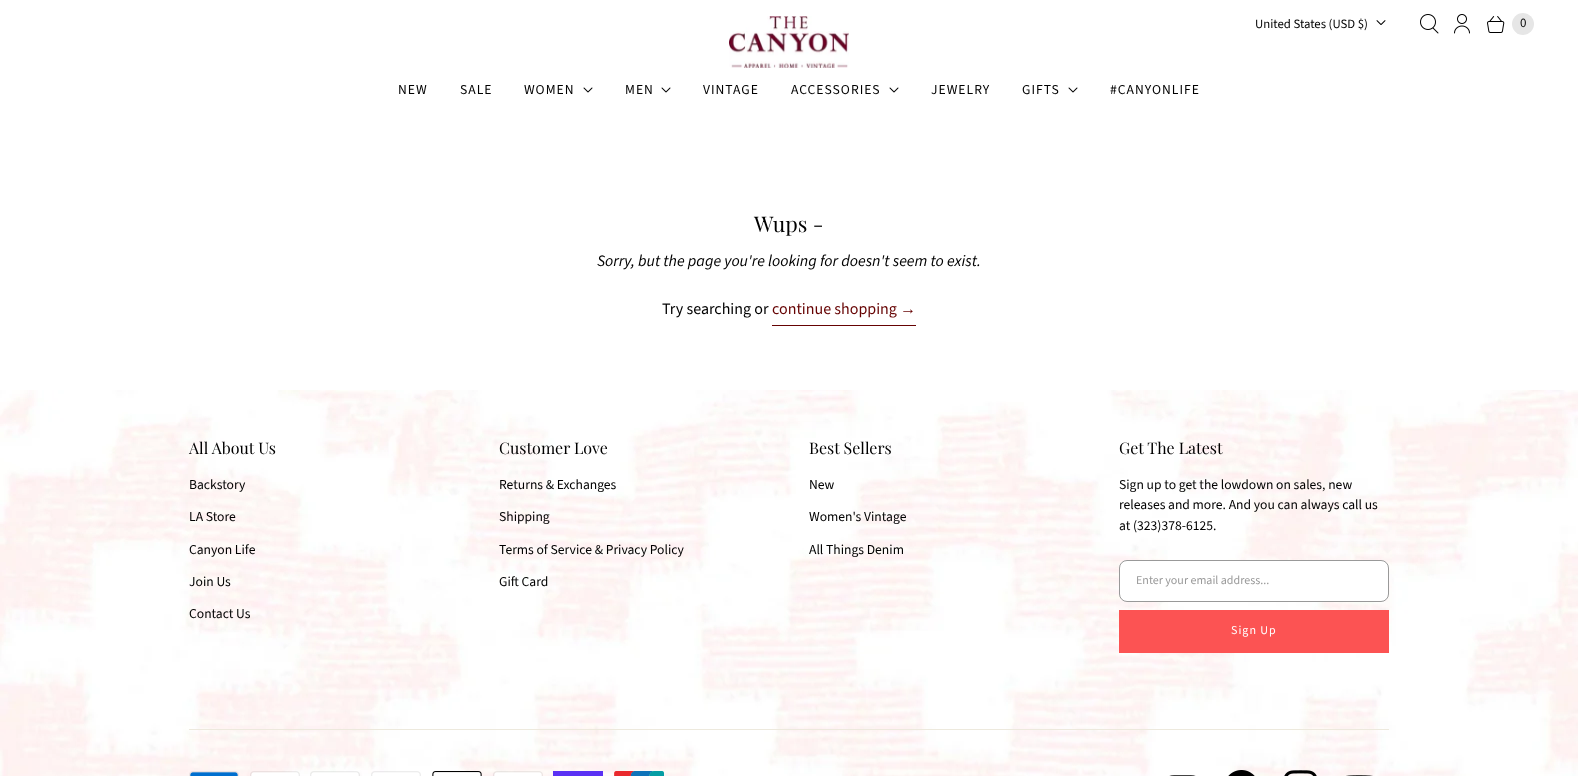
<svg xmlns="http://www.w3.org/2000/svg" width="1578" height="776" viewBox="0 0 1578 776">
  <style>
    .t1 { font: 12.75px Source Sans Pro; fill: #000; }
    .t2 { font: 13px Source Sans Pro; fill: #000; }
    .t3 { font: 13.6px Source Sans Pro; letter-spacing: 1px; fill: #000; }
    .t4 { font: 21.5px Playfair Display; fill: #000; }
    .t5 { font: italic 16px Source Sans Pro; fill: #000; }
    .t6 { font: 16px Source Sans Pro; fill: #000; }
    .t7 { font: 16px Source Sans Pro; fill: #660303; }
    .t8 { font: 16px Liberation Sans; fill: #660303; }
    .t9 { font: 16px Playfair Display; fill: #000; }
    .t10 { font: 13.6px Source Sans Pro; fill: #000; }
    .t11 { font: 12px Source Sans Pro; fill: #999; }
    .t12 { font: 12px Source Sans Pro; letter-spacing: 1px; fill: #fff; }
  </style>
  <rect width="100%" height="100%" fill="#fff"/>
  <text x="1255" y="28" class="t1">United States (USD $)</text>
  <image x="1376" y="20" width="10" height="5" href="images/1.png"/>
  <image x="1420" y="14" width="19" height="20" href="images/2.png"/>
  <image x="1454" y="14" width="16" height="20" href="images/3.png"/>
  <image x="1487" y="16" width="18" height="17" href="images/4.png"/>
  <circle cx="1523" cy="24" r="11" fill="#e6e6e6"/>
  <text x="1520" y="27" class="t2">0</text>
  <image x="729" y="16" width="120" height="52" href="images/5.png"/>
  <text x="398" y="94" class="t3">NEW</text>
  <text x="460" y="94" class="t3">SALE</text>
  <text x="524" y="94" class="t3">WOMEN</text>
  <image x="583" y="87" width="10" height="6" href="images/6.png"/>
  <text x="625" y="94" class="t3">MEN</text>
  <image x="661" y="87" width="10" height="6" href="images/6.png"/>
  <text x="703" y="94" class="t3">VINTAGE</text>
  <text x="791" y="94" class="t3">ACCESSORIES</text>
  <image x="889" y="87" width="10" height="6" href="images/6.png"/>
  <text x="931" y="94" class="t3">JEWELRY</text>
  <text x="1022" y="94" class="t3">GIFTS</text>
  <image x="1068" y="87" width="10" height="6" href="images/6.png"/>
  <text x="1110" y="94" class="t3">#CANYONLIFE</text>
  <text x="754" y="232" class="t4">Wups -</text>
  <text x="597" y="266" class="t5">Sorry, but the page you're looking for doesn't seem to exist.</text>
  <text x="662" y="314" class="t6">Try searching or</text>
  <text x="772" y="314" class="t7">continue shopping</text>
  <text x="900" y="314" class="t8">→</text>
  <rect x="772" y="325" width="144" height="1" fill="#660303"/>
  <image x="0" y="390" width="1578" height="386" href="images/7.png"/>
  <text x="189" y="454" class="t9">All About Us</text>
  <text x="189" y="489" class="t10">Backstory</text>
  <text x="189" y="521" class="t10">LA Store</text>
  <text x="189" y="554" class="t10">Canyon Life</text>
  <text x="189" y="586" class="t10">Join Us</text>
  <text x="189" y="618" class="t10">Contact Us</text>
  <text x="499" y="454" class="t9">Customer Love</text>
  <text x="499" y="489" class="t10">Returns &amp; Exchanges</text>
  <text x="499" y="521" class="t10">Shipping</text>
  <text x="499" y="554" class="t10">Terms of Service &amp; Privacy Policy</text>
  <text x="499" y="586" class="t10">Gift Card</text>
  <text x="809" y="454" class="t9">Best Sellers</text>
  <text x="809" y="489" class="t10">New</text>
  <text x="809" y="521" class="t10">Women's Vintage</text>
  <text x="809" y="554" class="t10">All Things Denim</text>
  <text x="1119" y="454" class="t9">Get The Latest</text>
  <text x="1119" y="489" class="t10">Sign up to get the lowdown on sales, new</text>
  <text x="1119" y="509" class="t10">releases and more. And you can always call us</text>
  <text x="1119" y="530" class="t10">at (323)378-6125.</text>
  <rect x="1119" y="560" width="270" height="42" rx="8" fill="#fff"/>
  <rect x="1119.5" y="560.5" width="269" height="41" rx="7.5" fill="none" stroke="#00000066"/>
  <text x="1136" y="584" class="t11">Enter your email address...</text>
  <rect x="1119" y="610" width="270" height="43" fill="#fc5353"/>
  <text x="1231" y="634" class="t12">Sign Up</text>
  <rect x="189" y="729" width="1200" height="1" fill="#ede9dd"/>
  <image x="189" y="771" width="50" height="5" href="images/8.png"/>
  <image x="250" y="771" width="50" height="5" href="images/9.png"/>
  <image x="310" y="771" width="50" height="5" href="images/10.png"/>
  <image x="371" y="771" width="50" height="5" href="images/11.png"/>
  <image x="432" y="771" width="50" height="5" href="images/12.png"/>
  <image x="493" y="771" width="50" height="5" href="images/13.png"/>
  <rect x="553" y="771" width="50" height="5" fill="#5a31f4"/>
  <image x="614" y="771" width="50" height="5" href="images/14.png"/>
  <image x="1169" y="775" width="27" height="1" href="images/15.png"/>
  <image x="1228" y="770" width="27" height="6" href="images/16.png"/>
  <image x="1284" y="770" width="33" height="6" href="images/17.png"/>
  <image x="1346" y="775" width="27" height="1" href="images/18.png"/>
</svg>
